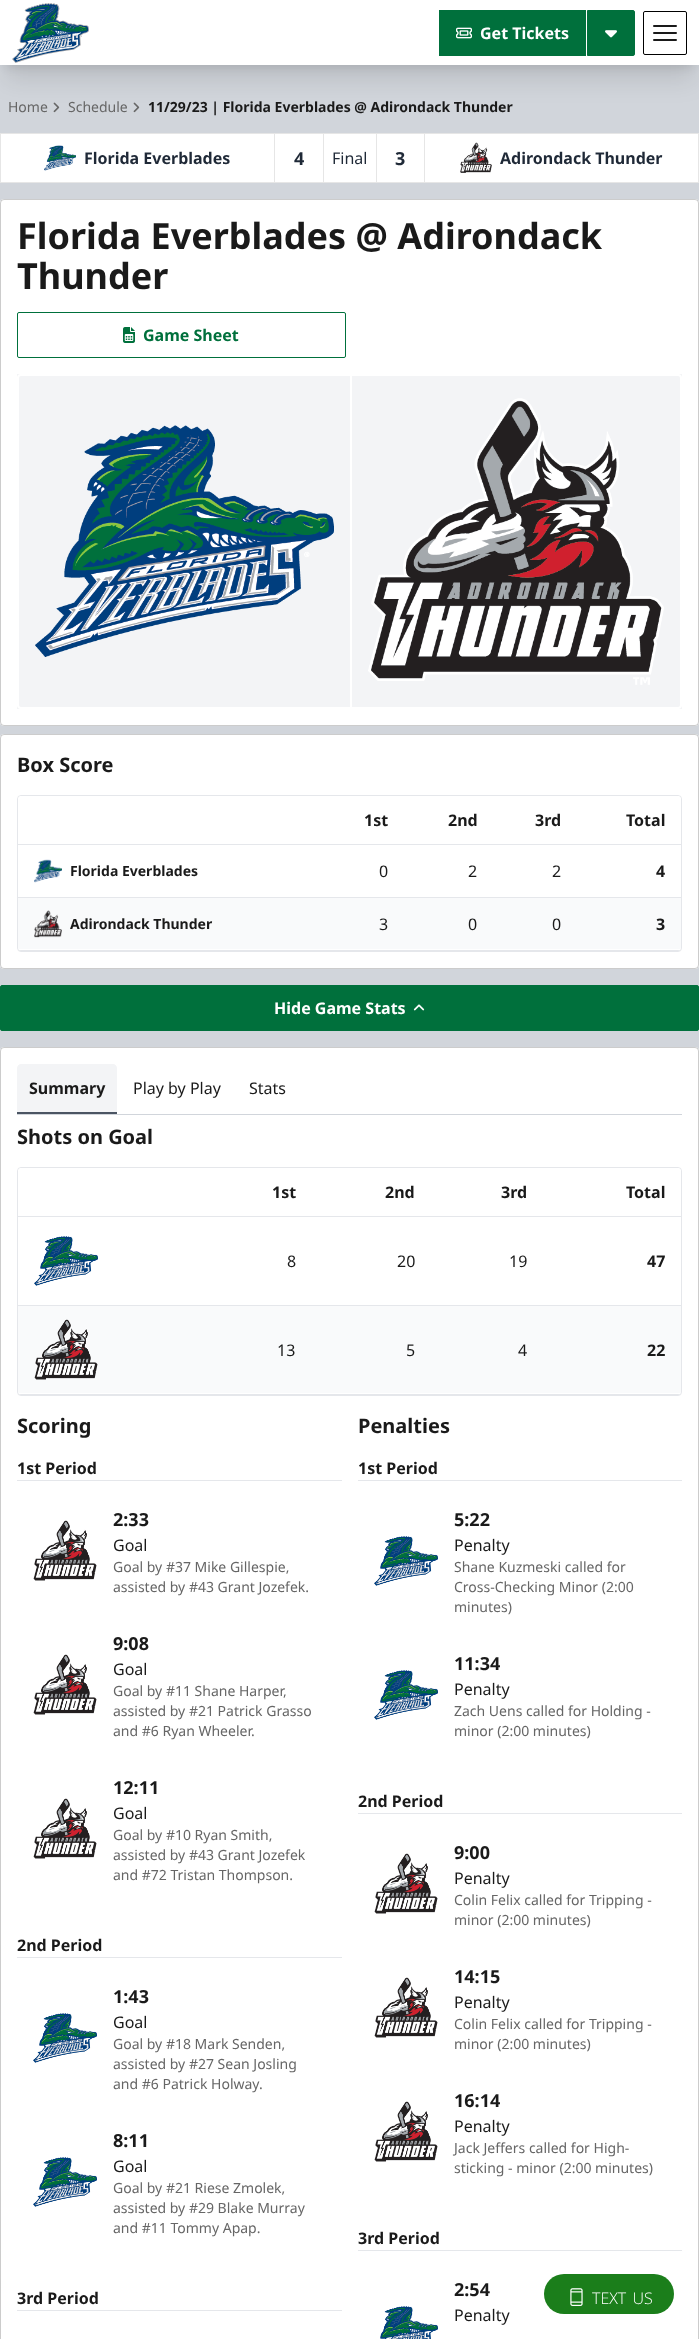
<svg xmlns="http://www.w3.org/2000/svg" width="699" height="2339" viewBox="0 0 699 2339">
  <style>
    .t1 { font: bold 16px Noto Sans; fill: #fff; }
    .t2 { font: 14px Noto Sans; fill: #666; }
    .t3 { font: bold 14px Noto Sans; fill: #1a1a1a; }
    .t4 { font: bold 16px Noto Sans; fill: #1f2937; }
    .t5 { font: bold 18px Noto Sans; fill: #1f2937; }
    .t6 { font: 16px Noto Sans; fill: #1f2937; }
    .t7 { font: bold 36px Noto Sans; fill: #1a1a1a; }
    .t8 { font: bold 16px Noto Sans; fill: #00703c; }
    .t9 { font: bold 20px Noto Sans; fill: #1a1a1a; }
    .t10 { font: bold 16px Noto Sans; fill: #1a1a1a; }
    .t11 { font: 16px Noto Sans; fill: #1a1a1a; }
    .t12 { font: bold 18px Noto Sans; fill: #1a1a1a; }
    .t13 { font: 300 16px Open Sans; fill: #fff; }
  </style>
  <defs>
    <clipPath id="clip1"><rect x="18" y="796" width="663" height="155" rx="3"/></clipPath>
    <clipPath id="clip2"><rect x="18" y="1168" width="663" height="227" rx="3"/></clipPath>
  </defs>
  <rect width="100%" height="100%" fill="#d1d5db"/>
  <rect x="6" y="14" width="687" height="53" fill="#0000001a" filter="blur(5px)"/>
  <image x="53" y="102" width="7" height="11" href="images/4.png"/>
  <image x="133" y="102" width="7" height="11" href="images/4.png"/>
  <rect x="5" y="25" width="689" height="55" fill="#0000001a" filter="blur(12.5px)"/>
  <rect x="0" y="0" width="699" height="65" fill="#fff"/>
  <image x="12" y="3" width="77" height="60" href="images/1.png"/>
  <rect x="439" y="10" width="147" height="46" fill="#00703c"/>
  <image x="456" y="27" width="16" height="12" href="images/2.png"/>
  <text x="480" y="39" class="t1">Get Tickets</text>
  <path d="M587.5 10.5H633C634 10.5 634.5 11 634.5 12V54C634.5 55 634 55.5 633 55.5H587.5Z" fill="#00703c" stroke="#00703c"/>
  <image x="605" y="30" width="12" height="8" href="images/3.png"/>
  <rect x="643.5" y="11.5" width="43" height="43" rx="1.5" fill="none" stroke="#000"/>
  <path d="M654 26H676M654 33H676M654 40H676" fill="none" stroke="#1a1a1a" stroke-width="2" stroke-linecap="round" stroke-linejoin="round"/>
  <text x="8" y="112" class="t2">Home</text>
  <text x="68" y="112" class="t2">Schedule</text>
  <text x="148" y="112" class="t3">11/29/23 | Florida Everblades @ Adirondack Thunder</text>
  <rect x="0.5" y="133.5" width="698" height="49" fill="#fff" stroke="#e6e6e6"/>
  <image x="44" y="145" width="32" height="26" href="images/5.png"/>
  <text x="84" y="164" class="t4">Florida Everblades</text>
  <rect x="274" y="134" width="1" height="48" fill="#e6e6e6"/>
  <text x="294" y="165" class="t5">4</text>
  <rect x="323" y="134" width="1" height="48" fill="#e6e6e6"/>
  <text x="332" y="164" class="t6">Final</text>
  <rect x="376" y="134" width="1" height="48" fill="#e6e6e6"/>
  <text x="395" y="165" class="t5">3</text>
  <rect x="424" y="134" width="1" height="48" fill="#e6e6e6"/>
  <image x="460" y="142" width="32" height="31" href="images/6.png"/>
  <text x="500" y="164" class="t4">Adirondack Thunder</text>
  <rect x="0" y="199" width="699" height="527" rx="4" fill="#fff"/>
  <rect x="0.5" y="199.5" width="698" height="526" rx="3.5" fill="none" stroke="#00000033"/>
  <text x="17" y="249" class="t7">Florida Everblades @ Adirondack</text>
  <text x="17" y="289" class="t7">Thunder</text>
  <rect x="17.5" y="312.5" width="328" height="45" rx="1.5" fill="none" stroke="#00703c"/>
  <image x="123" y="327" width="12" height="16" href="images/7.png"/>
  <text x="143" y="341" class="t8">Game Sheet</text>
  <rect x="17" y="374" width="665" height="335" fill="#f3f4f6"/>
  <rect x="18" y="375" width="663" height="333" rx="3" fill="none" stroke="#fff" stroke-width="2"/>
  <image x="35" y="425" width="299" height="232" href="images/8.png"/>
  <rect x="350" y="376" width="2" height="331" fill="#fff"/>
  <image x="368" y="398" width="296" height="287" href="images/9.png"/>
  <rect x="0" y="734" width="699" height="235" rx="4" fill="#fff"/>
  <rect x="0.5" y="734.5" width="698" height="234" rx="3.5" fill="none" stroke="#00000033"/>
  <text x="17" y="772" class="t9">Box Score</text>
  <rect x="17.5" y="795.5" width="664" height="156" rx="3.5" fill="none" stroke="#e5e7eb"/>
  <rect x="18" y="844" width="663" height="1" fill="#e5e7eb"/>
  <path d="M21 796H678C679.5 796 681 797.5 681 799V844H18V799C18 797.5 19.5 796 21 796Z" fill="#fff"/>
  <text x="364" y="826" class="t10">1st</text>
  <text x="448" y="826" class="t10">2nd</text>
  <text x="535" y="826" class="t10">3rd</text>
  <text x="626" y="826" class="t10">Total</text>
  <image x="34" y="859" width="28" height="24" href="images/10.png"/>
  <text x="70" y="876" class="t3">Florida Everblades</text>
  <text x="379" y="877" class="t11">0</text>
  <text x="468" y="877" class="t11">2</text>
  <text x="552" y="877" class="t11">2</text>
  <text x="656" y="877" class="t10">4</text>
  <rect x="18" y="898" width="663" height="51" fill="#f9fafb"/>
  <rect x="18" y="897" width="663" height="1" fill="#e5e7eb"/>
  <g clip-path="url(#clip1)">
    <rect x="18" y="950" width="663" height="1" fill="#e5e7eb"/>
  </g>
  <image x="34" y="910" width="28" height="28" href="images/11.png"/>
  <text x="70" y="929" class="t3">Adirondack Thunder</text>
  <text x="379" y="930" class="t11">3</text>
  <text x="468" y="930" class="t11">0</text>
  <text x="552" y="930" class="t11">0</text>
  <text x="656" y="930" class="t10">3</text>
  <rect x="0.5" y="985.5" width="698" height="45" rx="1.5" fill="#00703c" stroke="#00703c"/>
  <text x="274" y="1014" class="t1">Hide Game Stats</text>
  <image x="413" y="1004" width="12" height="7" href="images/12.png"/>
  <rect x="0" y="1047" width="699" height="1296" rx="4" fill="#fff"/>
  <rect x="0.5" y="1047.5" width="698" height="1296" rx="3.5" fill="none" stroke="#00000033"/>
  <rect x="17" y="1114" width="665" height="1" fill="#d1d5db"/>
  <path d="M21 1064H113C115 1064 117 1066 117 1068V1112H17V1068C17 1066 19 1064 21 1064Z" fill="#f3f4f6"/>
  <rect x="17" y="1112" width="100" height="2" fill="#4b5563"/>
  <text x="29" y="1094" class="t10">Summary</text>
  <text x="133" y="1094" class="t11">Play by Play</text>
  <text x="249" y="1094" class="t11">Stats</text>
  <text x="17" y="1144" class="t9">Shots on Goal</text>
  <rect x="17.5" y="1167.5" width="664" height="228" rx="3.5" fill="none" stroke="#e5e7eb"/>
  <rect x="18" y="1216" width="663" height="1" fill="#e5e7eb"/>
  <path d="M21 1168H678C679.5 1168 681 1169.5 681 1171V1216H18V1171C18 1169.5 19.5 1168 21 1168Z" fill="#fff"/>
  <text x="272" y="1198" class="t10">1st</text>
  <text x="385" y="1198" class="t10">2nd</text>
  <text x="501" y="1198" class="t10">3rd</text>
  <text x="626" y="1198" class="t10">Total</text>
  <image x="34" y="1236" width="64" height="50" href="images/13.png"/>
  <text x="287" y="1267" class="t11">8</text>
  <text x="397" y="1267" class="t11">20</text>
  <text x="509" y="1267" class="t11">19</text>
  <text x="647" y="1267" class="t10">47</text>
  <rect x="18" y="1306" width="663" height="87" fill="#f9fafb"/>
  <rect x="18" y="1305" width="663" height="1" fill="#e5e7eb"/>
  <g clip-path="url(#clip2)">
    <rect x="18" y="1394" width="663" height="1" fill="#e5e7eb"/>
  </g>
  <image x="34" y="1319" width="64" height="61" href="images/14.png"/>
  <text x="277" y="1356" class="t11">13</text>
  <text x="406" y="1356" class="t11">5</text>
  <text x="518" y="1356" class="t11">4</text>
  <text x="647" y="1356" class="t10">22</text>
  <text x="17" y="1433" class="t9">Scoring</text>
  <rect x="17" y="1480" width="325" height="1" fill="#e5e7eb"/>
  <text x="17" y="1474" class="t10">1st Period</text>
  <image x="33" y="1520" width="64" height="61" href="images/15.png"/>
  <text x="113" y="1526" class="t12">2:33</text>
  <text x="113" y="1551" class="t11">Goal</text>
  <text x="113" y="1572" class="t2">Goal by #37 Mike Gillespie,</text>
  <text x="113" y="1592" class="t2">assisted by #43 Grant Jozefek.</text>
  <image x="33" y="1654" width="64" height="61" href="images/15.png"/>
  <text x="113" y="1650" class="t12">9:08</text>
  <text x="113" y="1675" class="t11">Goal</text>
  <text x="113" y="1696" class="t2">Goal by #11 Shane Harper,</text>
  <text x="113" y="1716" class="t2">assisted by #21 Patrick Grasso</text>
  <text x="113" y="1736" class="t2">and #6 Ryan Wheeler.</text>
  <image x="33" y="1798" width="64" height="61" href="images/15.png"/>
  <text x="113" y="1794" class="t12">12:11</text>
  <text x="113" y="1819" class="t11">Goal</text>
  <text x="113" y="1840" class="t2">Goal by #10 Ryan Smith,</text>
  <text x="113" y="1860" class="t2">assisted by #43 Grant Jozefek</text>
  <text x="113" y="1880" class="t2">and #72 Tristan Thompson.</text>
  <rect x="17" y="1957" width="325" height="1" fill="#e5e7eb"/>
  <text x="17" y="1951" class="t10">2nd Period</text>
  <image x="33" y="2013" width="64" height="50" href="images/13.png"/>
  <text x="113" y="2003" class="t12">1:43</text>
  <text x="113" y="2028" class="t11">Goal</text>
  <text x="113" y="2049" class="t2">Goal by #18 Mark Senden,</text>
  <text x="113" y="2069" class="t2">assisted by #27 Sean Josling</text>
  <text x="113" y="2089" class="t2">and #6 Patrick Holway.</text>
  <image x="33" y="2157" width="64" height="50" href="images/13.png"/>
  <text x="113" y="2147" class="t12">8:11</text>
  <text x="113" y="2172" class="t11">Goal</text>
  <text x="113" y="2193" class="t2">Goal by #21 Riese Zmolek,</text>
  <text x="113" y="2213" class="t2">assisted by #29 Blake Murray</text>
  <text x="113" y="2233" class="t2">and #11 Tommy Apap.</text>
  <rect x="17" y="2310" width="325" height="1" fill="#e5e7eb"/>
  <text x="17" y="2304" class="t10">3rd Period</text>
  <text x="358" y="1433" class="t9">Penalties</text>
  <rect x="358" y="1480" width="324" height="1" fill="#e5e7eb"/>
  <text x="358" y="1474" class="t10">1st Period</text>
  <image x="374" y="1536" width="64" height="50" href="images/13.png"/>
  <text x="454" y="1526" class="t12">5:22</text>
  <text x="454" y="1551" class="t11">Penalty</text>
  <text x="454" y="1572" class="t2">Shane Kuzmeski called for</text>
  <text x="454" y="1592" class="t2">Cross-Checking Minor (2:00</text>
  <text x="454" y="1612" class="t2">minutes)</text>
  <image x="374" y="1670" width="64" height="50" href="images/13.png"/>
  <text x="454" y="1670" class="t12">11:34</text>
  <text x="454" y="1695" class="t11">Penalty</text>
  <text x="454" y="1716" class="t2">Zach Uens called for Holding -</text>
  <text x="454" y="1736" class="t2">minor (2:00 minutes)</text>
  <rect x="358" y="1813" width="324" height="1" fill="#e5e7eb"/>
  <text x="358" y="1807" class="t10">2nd Period</text>
  <image x="374" y="1853" width="64" height="61" href="images/15.png"/>
  <text x="454" y="1859" class="t12">9:00</text>
  <text x="454" y="1884" class="t11">Penalty</text>
  <text x="454" y="1905" class="t2">Colin Felix called for Tripping -</text>
  <text x="454" y="1925" class="t2">minor (2:00 minutes)</text>
  <image x="374" y="1977" width="64" height="61" href="images/15.png"/>
  <text x="454" y="1983" class="t12">14:15</text>
  <text x="454" y="2008" class="t11">Penalty</text>
  <text x="454" y="2029" class="t2">Colin Felix called for Tripping -</text>
  <text x="454" y="2049" class="t2">minor (2:00 minutes)</text>
  <image x="374" y="2101" width="64" height="61" href="images/15.png"/>
  <text x="454" y="2107" class="t12">16:14</text>
  <text x="454" y="2132" class="t11">Penalty</text>
  <text x="454" y="2153" class="t2">Jack Jeffers called for High-</text>
  <text x="454" y="2173" class="t2">sticking - minor (2:00 minutes)</text>
  <rect x="358" y="2250" width="324" height="1" fill="#e5e7eb"/>
  <text x="358" y="2244" class="t10">3rd Period</text>
  <image x="380" y="2306" width="58" height="33" href="images/16.png"/>
  <text x="454" y="2296" class="t12">2:54</text>
  <text x="454" y="2321" class="t11">Penalty</text>
  <rect x="544" y="2274" width="130" height="40" rx="20" fill="#1b7e1b"/>
  <image x="570" y="2288" width="13" height="18" href="images/17.png"/>
  <text x="592" y="2304" word-spacing="2" class="t13">TEXT US</text>
</svg>
